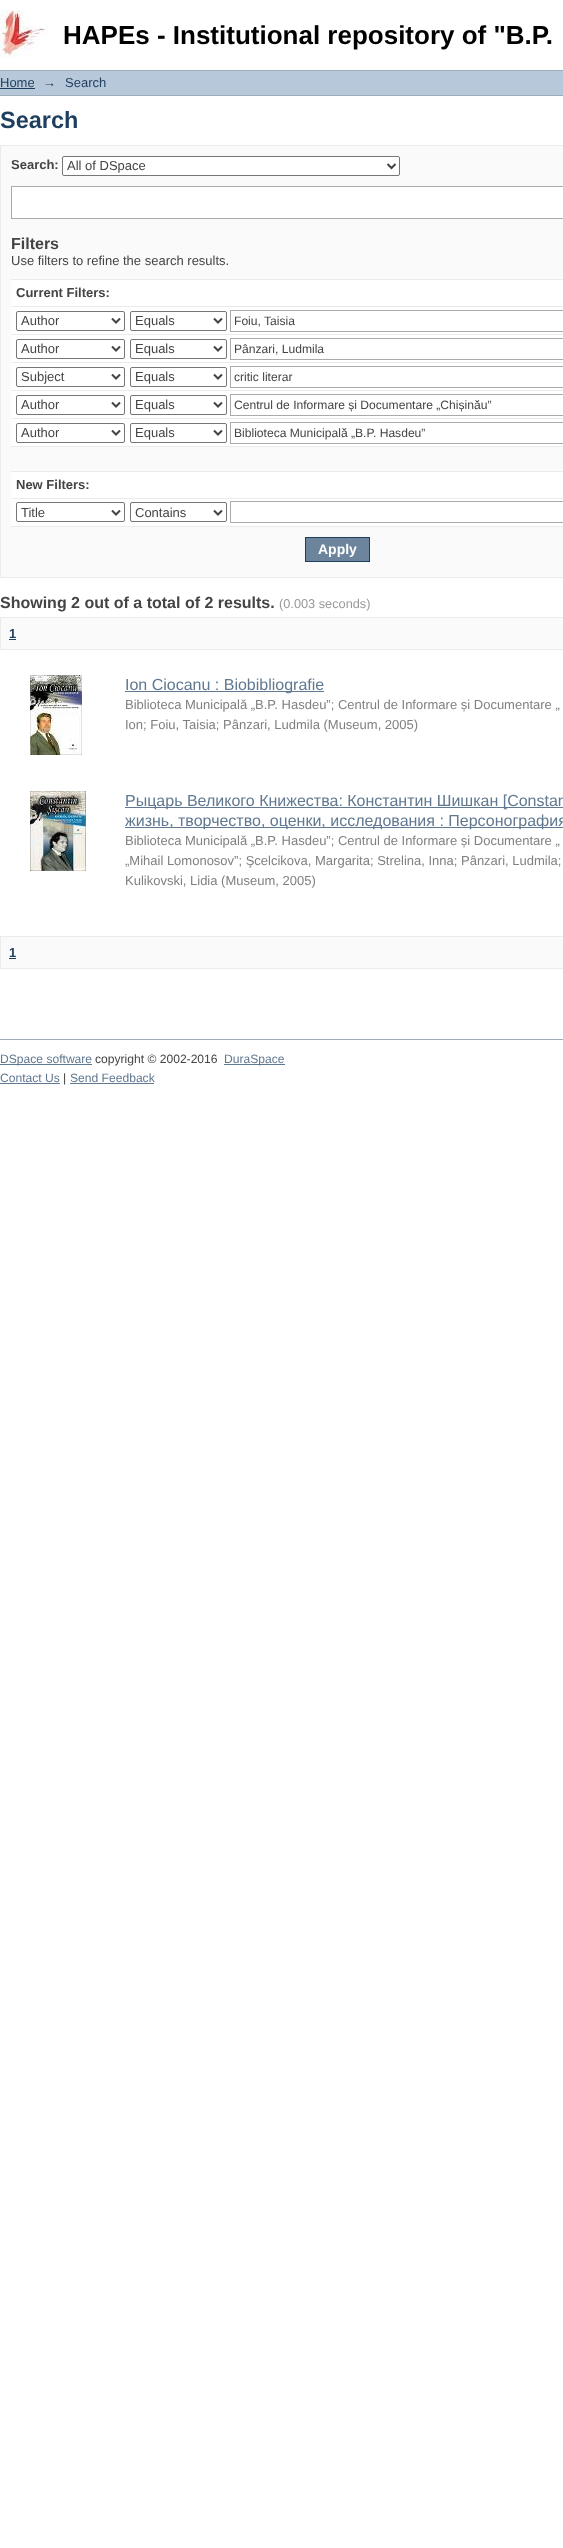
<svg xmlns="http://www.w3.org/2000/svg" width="563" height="2548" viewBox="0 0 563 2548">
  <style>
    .t1 { font: bold 26px Liberation Sans; fill: #000; }
    .t2 { font: 13px Liberation Sans; fill: #1f3f5e; }
    .t3 { font: bold 23.5px Liberation Sans; fill: #1f3f5e; }
    .t4 { font: bold 13px Liberation Sans; fill: #444; }
    .t5 { font: 13px Liberation Sans; fill: #444; }
    .t6 { font: bold 16px Liberation Sans; fill: #444; }
    .t7 { font: 12.1px Liberation Sans; fill: #444; }
    .t8 { font: bold 14px Liberation Sans; fill: #fff; }
    .t9 { font: 12.75px Liberation Sans; fill: #999; }
    .t10 { font: bold 13px Liberation Sans; fill: #1f3f5e; }
    .t11 { font: 16px Liberation Sans; fill: #607890; }
    .t12 { font: 13px Liberation Sans; fill: #808080; }
    .t13 { font: 12.1px Liberation Sans; fill: #607890; }
  </style>
  <rect width="100%" height="100%" fill="#fff"/>
  <image x="0" y="10" width="48" height="48" href="images/1.png"/>
  <text x="63" y="44" class="t1">HAPEs - Institutional repository of "B.P.</text>
  <rect x="0" y="71" width="563" height="24" fill="#b6c8d9"/>
  <rect x="0" y="70" width="563" height="1" fill="#9cacba"/>
  <rect x="0" y="95" width="563" height="1" fill="#9cacba"/>
  <text x="0" y="87" class="t2">Home</text>
  <rect x="0" y="88" width="35" height="1" fill="#1f3f5e"/>
  <text x="43" y="87" class="t2">→</text>
  <text x="65" y="87" class="t2">Search</text>
  <text x="0" y="128" class="t3">Search</text>
  <rect x="0.5" y="145.5" width="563" height="432" fill="#fafafa" stroke="#ebebeb"/>
  <text x="11" y="169" class="t4">Search:</text>
  <rect x="62.5" y="156.5" width="337" height="19" rx="1.5" fill="#fff" stroke="#767676"/>
  <path d="M387.5 164L391.5 168L395.5 164" fill="none" stroke="#444" stroke-width="2"/>
  <text x="67" y="170" class="t5">All of DSpace</text>
  <rect x="11.5" y="186.5" width="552" height="32" fill="#fff" stroke="#aaa"/>
  <text x="11" y="249" class="t6">Filters</text>
  <text x="11" y="265" class="t5">Use filters to refine the search results.</text>
  <rect x="11" y="280" width="552" height="246" fill="#fff"/>
  <rect x="11" y="279" width="552" height="1" fill="#ebebeb"/>
  <text x="16" y="297" class="t4">Current Filters:</text>
  <rect x="11" y="306" width="552" height="1" fill="#ebebeb"/>
  <rect x="16.5" y="311.5" width="108" height="19" rx="1.5" fill="none" stroke="#767676"/>
  <path d="M112 318.5L116 322.5L120 318.5" fill="none" stroke="#444" stroke-width="2"/>
  <text x="21" y="325" class="t5">Author</text>
  <rect x="130.5" y="311.5" width="96" height="19" rx="1.5" fill="none" stroke="#767676"/>
  <path d="M214 318.5L218 322.5L222 318.5" fill="none" stroke="#444" stroke-width="2"/>
  <text x="135" y="325" class="t5">Equals</text>
  <rect x="230.5" y="310.5" width="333" height="21" fill="none" stroke="#aaa"/>
  <text x="234" y="325" class="t7">Foiu, Taisia</text>
  <rect x="11" y="334" width="552" height="1" fill="#ebebeb"/>
  <rect x="16.5" y="339.5" width="108" height="19" rx="1.5" fill="none" stroke="#767676"/>
  <path d="M112 346.5L116 350.5L120 346.5" fill="none" stroke="#444" stroke-width="2"/>
  <text x="21" y="353" class="t5">Author</text>
  <rect x="130.5" y="339.5" width="96" height="19" rx="1.5" fill="none" stroke="#767676"/>
  <path d="M214 346.5L218 350.5L222 346.5" fill="none" stroke="#444" stroke-width="2"/>
  <text x="135" y="353" class="t5">Equals</text>
  <rect x="230.5" y="338.5" width="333" height="21" fill="none" stroke="#aaa"/>
  <text x="234" y="353" class="t7">Pânzari, Ludmila</text>
  <rect x="11" y="362" width="552" height="1" fill="#ebebeb"/>
  <rect x="16.5" y="367.5" width="108" height="19" rx="1.5" fill="none" stroke="#767676"/>
  <path d="M112 374.5L116 378.5L120 374.5" fill="none" stroke="#444" stroke-width="2"/>
  <text x="21" y="381" class="t5">Subject</text>
  <rect x="130.5" y="367.5" width="96" height="19" rx="1.5" fill="none" stroke="#767676"/>
  <path d="M214 374.5L218 378.5L222 374.5" fill="none" stroke="#444" stroke-width="2"/>
  <text x="135" y="381" class="t5">Equals</text>
  <rect x="230.5" y="366.5" width="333" height="21" fill="none" stroke="#aaa"/>
  <text x="234" y="381" class="t7">critic literar</text>
  <rect x="11" y="390" width="552" height="1" fill="#ebebeb"/>
  <rect x="16.5" y="395.5" width="108" height="19" rx="1.5" fill="none" stroke="#767676"/>
  <path d="M112 402.5L116 406.5L120 402.5" fill="none" stroke="#444" stroke-width="2"/>
  <text x="21" y="409" class="t5">Author</text>
  <rect x="130.5" y="395.5" width="96" height="19" rx="1.5" fill="none" stroke="#767676"/>
  <path d="M214 402.5L218 406.5L222 402.5" fill="none" stroke="#444" stroke-width="2"/>
  <text x="135" y="409" class="t5">Equals</text>
  <rect x="230.5" y="394.5" width="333" height="21" fill="none" stroke="#aaa"/>
  <text x="234" y="409" class="t7">Centrul de Informare și Documentare „Chișinău”</text>
  <rect x="11" y="418" width="552" height="1" fill="#ebebeb"/>
  <rect x="16.5" y="423.5" width="108" height="19" rx="1.5" fill="none" stroke="#767676"/>
  <path d="M112 430.5L116 434.5L120 430.5" fill="none" stroke="#444" stroke-width="2"/>
  <text x="21" y="437" class="t5">Author</text>
  <rect x="130.5" y="423.5" width="96" height="19" rx="1.5" fill="none" stroke="#767676"/>
  <path d="M214 430.5L218 434.5L222 430.5" fill="none" stroke="#444" stroke-width="2"/>
  <text x="135" y="437" class="t5">Equals</text>
  <rect x="230.5" y="422.5" width="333" height="21" fill="none" stroke="#aaa"/>
  <text x="234" y="437" class="t7">Biblioteca Municipală „B.P. Hasdeu”</text>
  <rect x="11" y="447" width="552" height="24" fill="#fafafa"/>
  <rect x="11" y="446" width="552" height="1" fill="#ebebeb"/>
  <rect x="11" y="471" width="552" height="1" fill="#ebebeb"/>
  <text x="16" y="489" class="t4">New Filters:</text>
  <rect x="11" y="498" width="552" height="1" fill="#ebebeb"/>
  <rect x="16.5" y="502.5" width="108" height="19" rx="1.5" fill="none" stroke="#767676"/>
  <path d="M112 510.5L116 514.5L120 510.5" fill="none" stroke="#444" stroke-width="2"/>
  <text x="21" y="517" class="t5">Title</text>
  <rect x="130.5" y="502.5" width="96" height="19" rx="1.5" fill="none" stroke="#767676"/>
  <path d="M214 510.5L218 514.5L222 510.5" fill="none" stroke="#444" stroke-width="2"/>
  <text x="135" y="517" class="t5">Contains</text>
  <rect x="230.5" y="501.5" width="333" height="21" fill="none" stroke="#aaa"/>
  <rect x="11" y="526" width="552" height="1" fill="#ebebeb"/>
  <rect x="305.5" y="537.5" width="64" height="24" fill="#6d859c" stroke="#1f3f5e"/>
  <text x="318" y="554" class="t8">Apply</text>
  <text x="0" y="608" class="t6">Showing 2 out of a total of 2 results.</text>
  <text x="279" y="608" class="t9">(0.003 seconds)</text>
  <rect x="0.5" y="617.5" width="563" height="32" fill="#fafafa" stroke="#ebebeb"/>
  <text x="9" y="638" class="t10">1</text>
  <rect x="9" y="639" width="7" height="1" fill="#1f3f5e"/>
  <image x="30" y="675" width="52" height="80" href="images/2.png"/>
  <rect x="125" y="691" width="199" height="1" fill="#607890"/>
  <text x="125" y="690" class="t11">Ion Ciocanu : Biobibliografie</text>
  <text x="125" y="709" class="t12">Biblioteca Municipală „B.P. Hasdeu”; Centrul de Informare și Documentare „</text>
  <text x="125" y="729" class="t12">Ion; Foiu, Taisia; Pânzari, Ludmila (Museum, 2005)</text>
  <image x="30" y="791" width="56" height="80" href="images/3.png"/>
  <rect x="125" y="807" width="438" height="1" fill="#607890"/>
  <text x="125" y="806" class="t11">Рыцарь Великого Книжества: Константин Шишкан [Constan</text>
  <rect x="125" y="827" width="438" height="1" fill="#607890"/>
  <text x="125" y="826" class="t11">жизнь, творчество, оценки, исследования : Персонография</text>
  <text x="125" y="845" class="t12">Biblioteca Municipală „B.P. Hasdeu”; Centrul de Informare și Documentare „</text>
  <text x="125" y="865" class="t12">„Mihail Lomonosov”; Şcelcikova, Margarita; Strelina, Inna; Pânzari, Ludmila;</text>
  <text x="125" y="885" class="t12">Kulikovski, Lidia (Museum, 2005)</text>
  <rect x="0.5" y="936.5" width="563" height="32" fill="#fafafa" stroke="#ebebeb"/>
  <text x="9" y="957" class="t10">1</text>
  <rect x="9" y="958" width="7" height="1" fill="#1f3f5e"/>
  <rect x="0" y="1039" width="563" height="1" fill="#9cacba"/>
  <rect x="0" y="1064" width="92" height="1" fill="#607890"/>
  <text x="0" y="1063" class="t13">DSpace software</text>
  <text x="95" y="1063" class="t7">copyright © 2002-2016</text>
  <rect x="224" y="1064" width="61" height="1" fill="#607890"/>
  <text x="224" y="1063" class="t13">DuraSpace</text>
  <text x="0" y="1082" class="t13">Contact Us</text>
  <rect x="0" y="1083" width="60" height="1" fill="#607890"/>
  <text x="63" y="1082" class="t7">|</text>
  <text x="70" y="1082" class="t13">Send Feedback</text>
  <rect x="70" y="1083" width="84" height="1" fill="#607890"/>
</svg>
